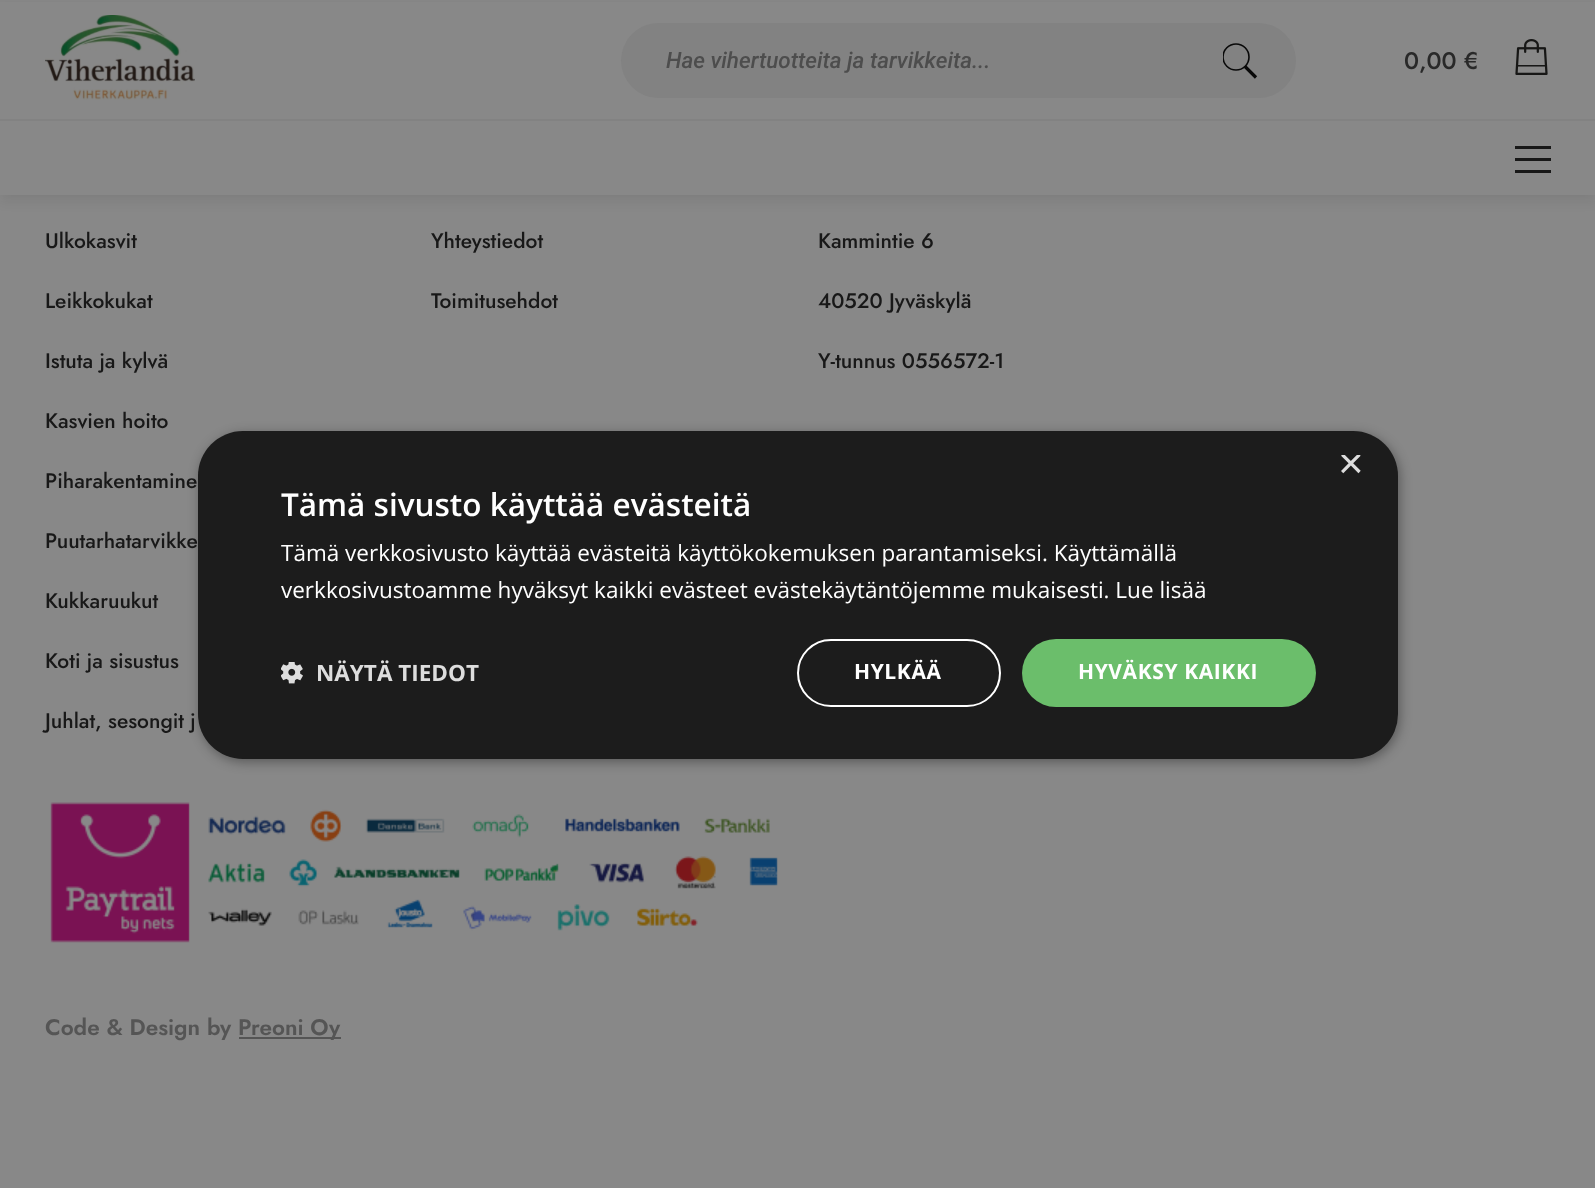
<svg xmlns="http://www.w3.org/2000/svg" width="1595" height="1188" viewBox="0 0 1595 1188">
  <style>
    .t1 { font: italic 500 22.5px Roboto; fill: #4d4d4d; }
    .t2 { font: 500 24px Jost; fill: #292929; }
    .t3 { font: 500 21px Jost; fill: #181818; }
    .t4 { font: 600 22.5px Jost; fill: #555; }
    .t5 { font: 44px Liberation Sans; fill: #ddd; }
    .t6 { font: 600 31.5px Open Sans; fill: #fff; }
    .t7 { font: 22.5px Open Sans; fill: #fff; }
    .t8 { font: bold 22.5px Open Sans; fill: #ddd; }
    .t9 { font: bold 21px Open Sans; letter-spacing: 0.6px; fill: #fff; }
  </style>
  <defs>
    <clipPath id="clip1"><rect x="1223" y="42" width="34" height="36"/></clipPath>
    <clipPath id="clip2"><rect x="1338" y="455" width="23" height="22"/></clipPath>
  </defs>
  <rect width="100%" height="100%" fill="#888"/>
  <rect x="0" y="6" width="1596" height="195" fill="#09090914" filter="blur(6px)"/>
  <rect x="0" y="2" width="1595" height="193" fill="#888"/>
  <image x="45" y="15" width="150" height="85" href="images/1.png"/>
  <rect x="621" y="23" width="675" height="75" rx="37.5" fill="#828282"/>
  <text x="666" y="68" class="t1">Hae vihertuotteita ja tarvikkeita...</text>
  <g clip-path="url(#clip1)">
    <circle cx="1236" cy="57" r="13" fill="none" stroke="#090909" stroke-width="1.6"/>
  </g>
  <path d="M1245 66.5L1256 77.5" fill="none" stroke="#090909" stroke-width="3.2"/>
  <text x="1404" y="69" class="t2">0,00 €</text>
  <image x="1515" y="39" width="33" height="36" href="images/2.png"/>
  <rect x="1515" y="146" width="36" height="3" fill="#181818"/>
  <rect x="1515" y="158" width="36" height="3" fill="#181818"/>
  <rect x="1515" y="170" width="36" height="3" fill="#181818"/>
  <rect x="0" y="119" width="1595" height="2" fill="#828282"/>
  <text x="45" y="248" class="t3">Ulkokasvit</text>
  <text x="45" y="308" class="t3">Leikkokukat</text>
  <text x="45" y="368" class="t3">Istuta ja kylvä</text>
  <text x="45" y="428" class="t3">Kasvien hoito</text>
  <text x="45" y="488" class="t3">Piharakentamine</text>
  <text x="45" y="548" class="t3">Puutarhatarvikke</text>
  <text x="45" y="608" class="t3">Kukkaruukut</text>
  <text x="45" y="668" class="t3">Koti ja sisustus</text>
  <text x="45" y="728" class="t3">Juhlat, sesongit j</text>
  <text x="431" y="248" class="t3">Yhteystiedot</text>
  <text x="431" y="308" class="t3">Toimitusehdot</text>
  <text x="818" y="248" class="t3">Kammintie 6</text>
  <text x="818" y="308" class="t3">40520 Jyväskylä</text>
  <text x="818" y="368" class="t3">Y-tunnus 0556572-1</text>
  <image x="50" y="802" width="728" height="141" href="images/3.png"/>
  <text x="45" y="1035" class="t4">Code &amp; Design by</text>
  <rect x="239" y="1037" width="102" height="2" fill="#555"/>
  <text x="238" y="1035" class="t4">Preoni Oy</text>
  <rect x="200" y="434" width="1200" height="328" rx="45" fill="#00000059" filter="blur(6px)"/>
  <rect x="198" y="431" width="1200" height="328" rx="45" fill="#1c1c1c"/>
  <g clip-path="url(#clip2)">
    <text x="1338" y="478" class="t5">×</text>
  </g>
  <text x="281" y="516" class="t6">Tämä sivusto käyttää evästeitä</text>
  <text x="281" y="561" class="t7">Tämä verkkosivusto käyttää evästeitä käyttökokemuksen parantamiseksi. Käyttämällä</text>
  <text x="281" y="598" class="t7">verkkosivustoamme hyväksyt kaikki evästeet evästekäytäntöjemme mukaisesti. Lue lisää</text>
  <image x="281" y="662" width="22" height="22" href="images/4.png"/>
  <text x="316" y="681" class="t8">NÄYTÄ TIEDOT</text>
  <rect x="798" y="640" width="202" height="66" rx="33" fill="none" stroke="#fff" stroke-width="2"/>
  <text x="854" y="679" class="t9">HYLKÄÄ</text>
  <rect x="1022" y="639" width="294" height="68" rx="34" fill="#6bbe6b"/>
  <text x="1078" y="679" class="t9">HYVÄKSY KAIKKI</text>
</svg>
